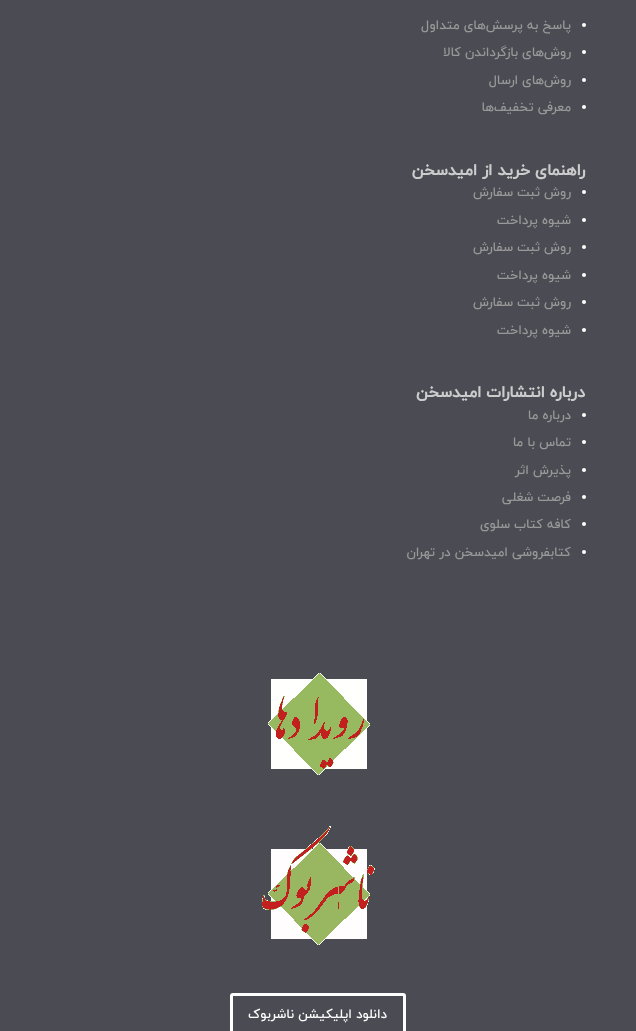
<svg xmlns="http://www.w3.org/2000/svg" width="636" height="1031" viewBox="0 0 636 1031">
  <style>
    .t1 { font: 500 13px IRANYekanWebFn; direction: rtl; fill: #999; }
    .t2 { font: bold 16px IRANYekanWebFn; direction: rtl; fill: #ccc; }
    .t3 { font: 500 13px IRANYekanWebFn; direction: rtl; fill: #fff; }
  </style>
  <rect width="100%" height="100%" fill="#4b4b53"/>
  <circle cx="584" cy="25" r="2" fill="#fff"/>
  <text x="571" y="29" class="t1">پاسخ به پرسش‌های متداول</text>
  <circle cx="584" cy="52" r="2" fill="#fff"/>
  <text x="571" y="56" class="t1">روش‌های بازگرداندن کالا</text>
  <circle cx="584" cy="80" r="2" fill="#fff"/>
  <text x="571" y="84" class="t1">روش‌های ارسال</text>
  <circle cx="584" cy="107" r="2" fill="#fff"/>
  <text x="571" y="111" class="t1">معرفی تخفیف‌ها</text>
  <text x="585" y="175" class="t2">راهنمای خرید از امیدسخن</text>
  <circle cx="584" cy="192" r="2" fill="#fff"/>
  <text x="571" y="196" class="t1">روش ثبت سفارش</text>
  <circle cx="584" cy="220" r="2" fill="#fff"/>
  <text x="571" y="224" class="t1">شیوه پرداخت</text>
  <circle cx="584" cy="247" r="2" fill="#fff"/>
  <text x="571" y="251" class="t1">روش ثبت سفارش</text>
  <circle cx="584" cy="275" r="2" fill="#fff"/>
  <text x="571" y="279" class="t1">شیوه پرداخت</text>
  <circle cx="584" cy="302" r="2" fill="#fff"/>
  <text x="571" y="306" class="t1">روش ثبت سفارش</text>
  <circle cx="584" cy="330" r="2" fill="#fff"/>
  <text x="571" y="334" class="t1">شیوه پرداخت</text>
  <text x="585" y="397" class="t2">درباره انتشارات امیدسخن</text>
  <circle cx="584" cy="415" r="2" fill="#fff"/>
  <text x="571" y="419" class="t1">درباره ما</text>
  <circle cx="584" cy="442" r="2" fill="#fff"/>
  <text x="571" y="446" class="t1">تماس با ما</text>
  <circle cx="584" cy="470" r="2" fill="#fff"/>
  <text x="571" y="474" class="t1">پذیرش اثر</text>
  <circle cx="584" cy="497" r="2" fill="#fff"/>
  <text x="571" y="501" class="t1">فرصت شغلی</text>
  <circle cx="584" cy="524" r="2" fill="#fff"/>
  <text x="571" y="528" class="t1">کافه کتاب سلوی</text>
  <circle cx="584" cy="552" r="2" fill="#fff"/>
  <text x="571" y="556" class="t1">کتابفروشی امیدسخن در تهران</text>
  <image x="268" y="673" width="102" height="102" href="images/1.png"/>
  <image x="262" y="826" width="113" height="119" href="images/2.png"/>
  <rect x="231.5" y="994.5" width="173" height="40" rx="1.5" fill="none" stroke="#fff" stroke-width="3"/>
  <text x="387" y="1018" class="t3">دانلود اپلیکیشن ناشربوک</text>
</svg>
